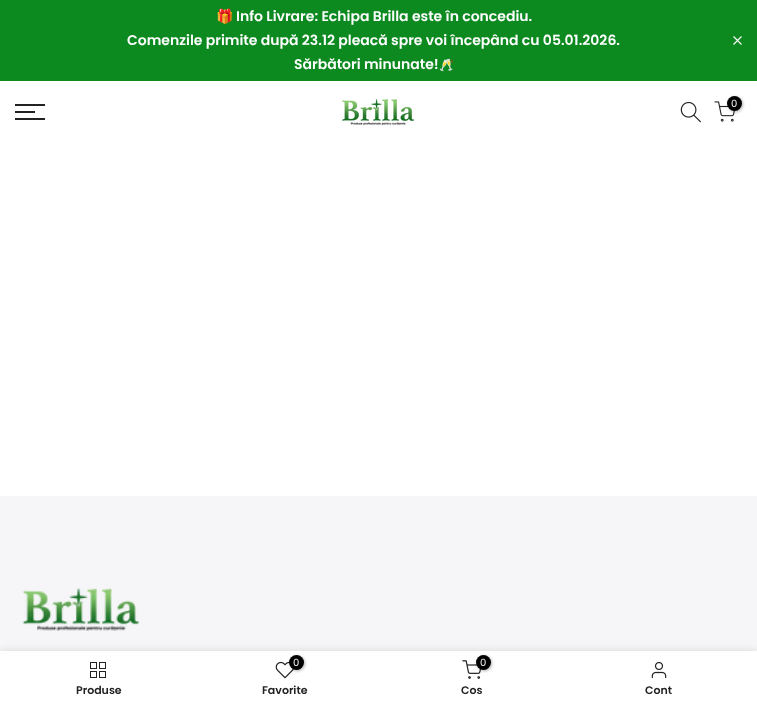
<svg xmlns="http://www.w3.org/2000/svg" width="757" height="706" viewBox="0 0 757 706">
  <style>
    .t1 { font: bold 14px Noto Color Emoji; fill: #fff; }
    .t2 { font: 600 14px Poppins; fill: #fff; }
    .t3 { font: 12px Noto Color Emoji; fill: #fff; }
    .t4 { font: 10px Poppins; fill: #fff; }
    .t5 { font: 600 11px Poppins; fill: #222; }
  </style>
  <rect width="100%" height="100%" fill="#fff"/>
  <rect x="0" y="0" width="757" height="81" fill="#0c891f"/>
  <text x="216" y="21" class="t1">🎁</text>
  <text x="236" y="21" class="t2">Info Livrare: Echipa Brilla este în concediu.</text>
  <text x="127" y="45" class="t2">Comenzile primite după 23.12 pleacă spre voi începând cu 05.01.2026.</text>
  <text x="294" y="69" class="t2">Sărbători minunate!</text>
  <text x="439" y="69" class="t3">🥂</text>
  <path d="M741.5 36.5L733.5 44.5M741.5 44.5L733.5 36.5" fill="none" stroke="#fff" stroke-width="1.1"/>
  <image x="342" y="99" width="73" height="27" href="images/1.png"/>
  <image x="680" y="101" width="21" height="22" href="images/2.png"/>
  <image x="714" y="101" width="21" height="21" href="images/3.png"/>
  <rect x="728" y="97" width="15" height="15" rx="7.5" fill="#0000004d" filter="blur(1.5px)"/>
  <circle cx="734.5" cy="103.5" r="7.5" fill="#000"/>
  <text x="731" y="107" class="t4">0</text>
  <rect x="15" y="104" width="30" height="2" fill="#222"/>
  <rect x="15" y="111" width="20" height="2" fill="#222"/>
  <rect x="15" y="118" width="30" height="2" fill="#222"/>
  <rect x="0" y="496" width="757" height="155" fill="#f6f6f8"/>
  <image x="22" y="588" width="118" height="44" href="images/4.png"/>
  <rect x="0" y="651" width="757" height="55" fill="#0000001f" filter="blur(4.5px)"/>
  <rect x="0" y="651" width="757" height="55" fill="#fff"/>
  <image x="90" y="662" width="16" height="16" href="images/5.png"/>
  <text x="76" y="694" class="t5">Produse</text>
  <image x="275" y="661" width="19" height="18" href="images/6.png"/>
  <rect x="290" y="656" width="15" height="15" rx="7.5" fill="#0000004d" filter="blur(1.5px)"/>
  <circle cx="296.5" cy="662.5" r="7.5" fill="#000"/>
  <text x="293" y="666" class="t4">0</text>
  <text x="262" y="694" class="t5">Favorite</text>
  <image x="462" y="660" width="19" height="19" href="images/7.png"/>
  <rect x="477" y="656" width="15" height="15" rx="7.5" fill="#0000004d" filter="blur(1.5px)"/>
  <circle cx="483.5" cy="662.5" r="7.5" fill="#000"/>
  <text x="480" y="666" class="t4">0</text>
  <text x="461" y="694" class="t5">Cos</text>
  <image x="651" y="661" width="16" height="18" href="images/8.png"/>
  <text x="645" y="694" class="t5">Cont</text>
</svg>
